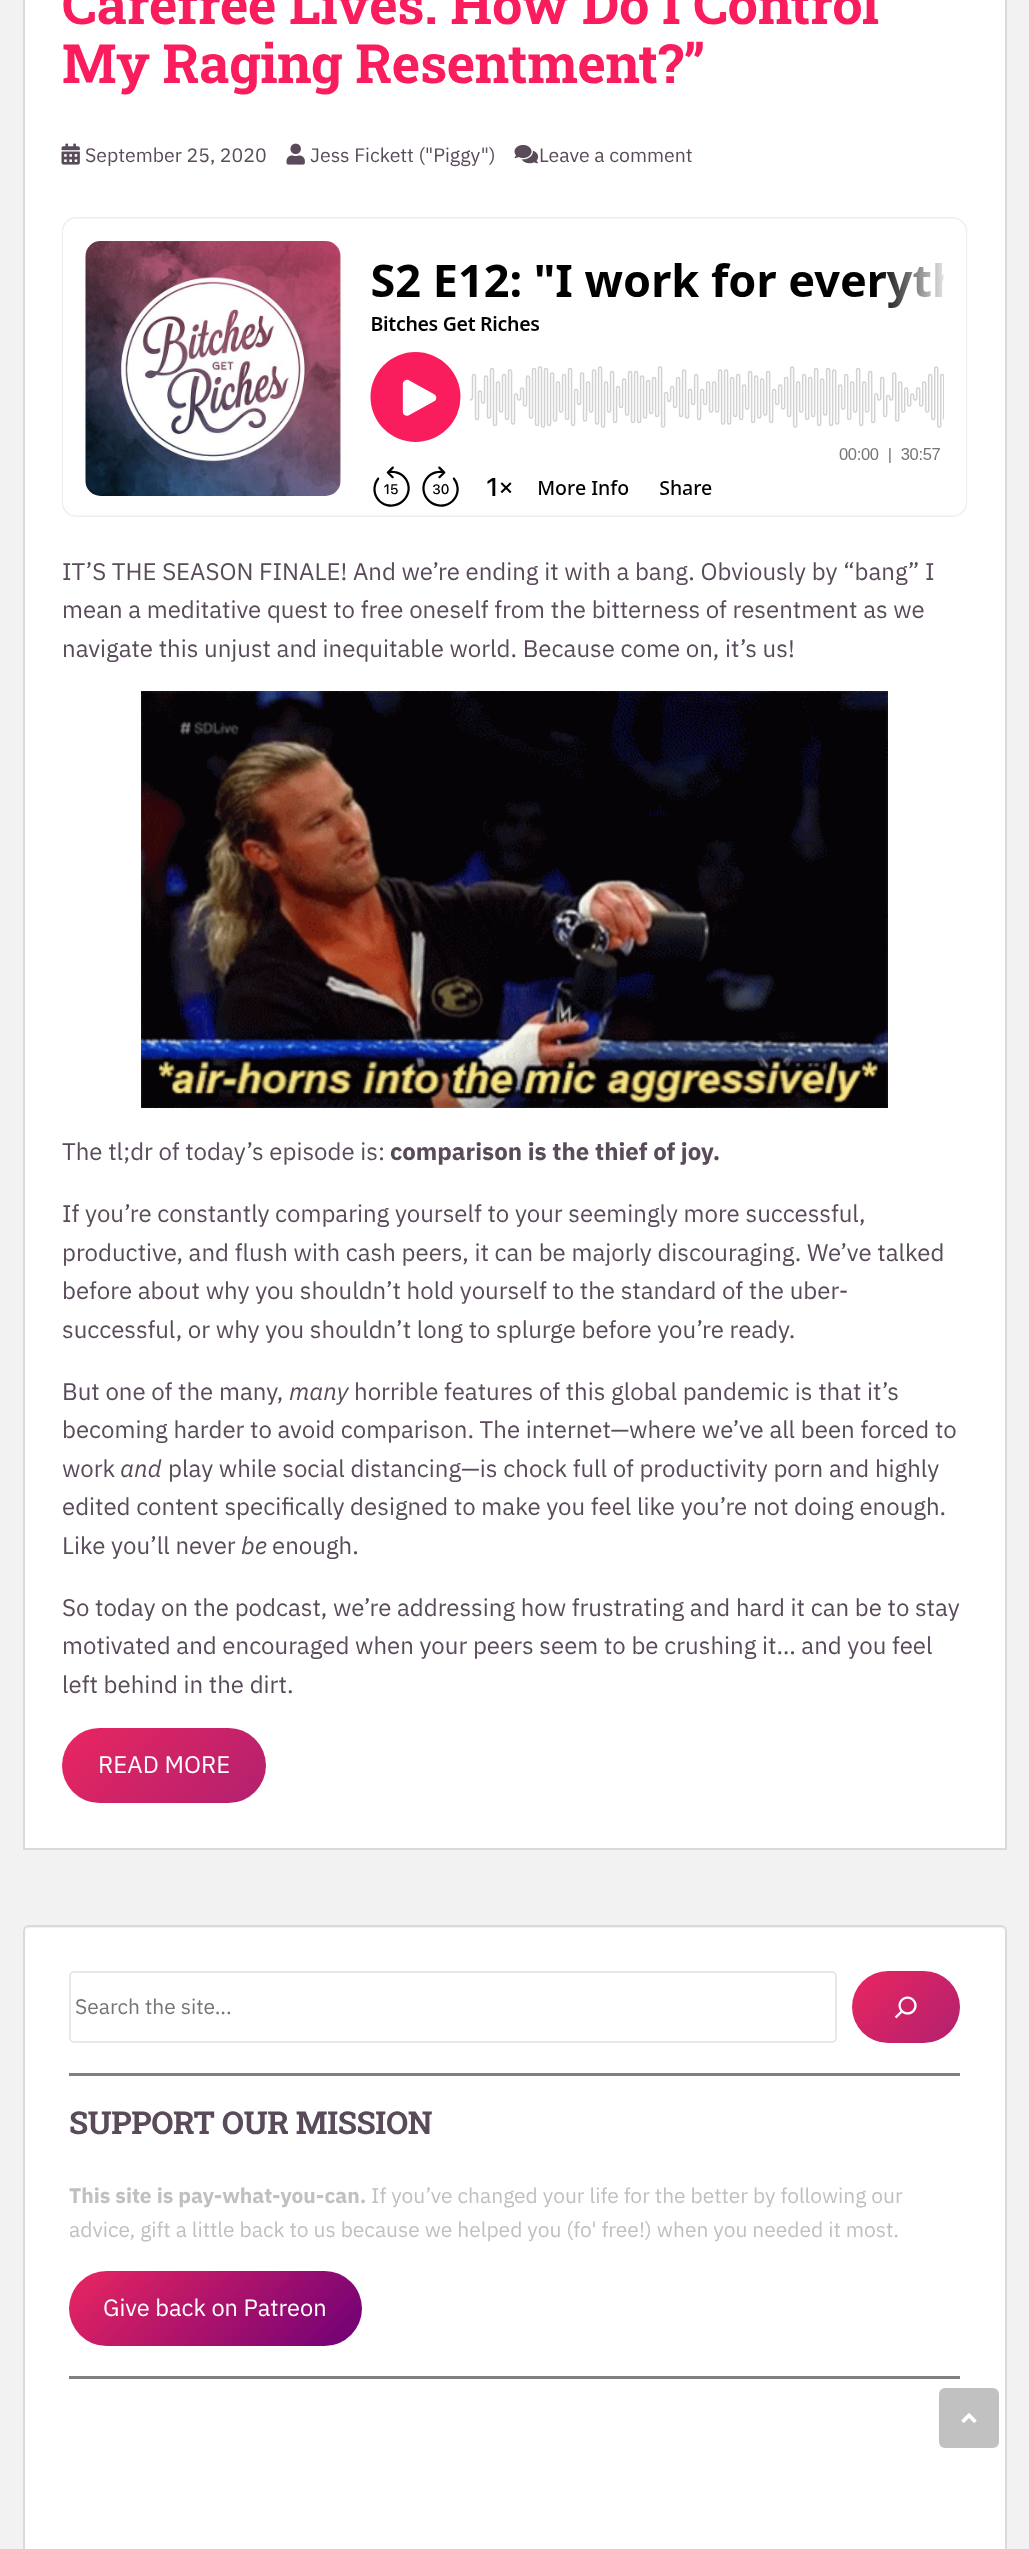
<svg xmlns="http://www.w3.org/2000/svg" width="1029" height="2549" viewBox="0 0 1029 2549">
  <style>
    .t1 { font: bold 54px Roboto Slab; letter-spacing: -0.4px; fill: #fa1d5d; }
    .t2 { font: 19.5px IBM Plex Sans; fill: #594b59; }
    .t3 { font: 24px IBM Plex Sans; fill: #594b59; }
    .t4 { font: bold 24px IBM Plex Sans; fill: #594b59; }
    .t5 { font: italic 24px IBM Plex Sans; fill: #594b59; }
    .t6 { font: 24px IBM Plex Sans; fill: #fff; }
    .t7 { font: 21px IBM Plex Sans; fill: #757575; }
    .t8 { font: bold 31.5px Roboto Slab; letter-spacing: -0.4px; fill: #594b59; }
    .t9 { font: bold 21px IBM Plex Sans; fill: #c1c0c0; }
    .t10 { font: 21px IBM Plex Sans; fill: #c1c0c0; }
    .t11 { font: 23.6px IBM Plex Sans; fill: #fff; }
  </style>
  <defs>
    <linearGradient id="g1" gradientUnits="userSpaceOnUse" x1="94" y1="1696" x2="233" y2="1835"><stop offset="0" stop-color="#e92660"/><stop offset="1" stop-color="#b2206f"/></linearGradient>
    <linearGradient id="g2" gradientUnits="userSpaceOnUse" x1="861" y1="1962" x2="951" y2="2052"><stop offset="0" stop-color="#e92660"/><stop offset="1" stop-color="#b2206f"/></linearGradient>
    <linearGradient id="g3" gradientUnits="userSpaceOnUse" x1="123" y1="2217" x2="307" y2="2400"><stop offset="0" stop-color="#e92660"/><stop offset="1" stop-color="#6e0077"/></linearGradient>
  </defs>
  <rect width="100%" height="100%" fill="#f2f2f2"/>
  <rect x="24" y="-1" width="982" height="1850" fill="#fff" stroke="#dadada" stroke-width="2"/>
  <text x="62" y="24" class="t1">Carefree Lives. How Do I Control</text>
  <text x="62" y="83" class="t1">My Raging Resentment?”</text>
  <image x="61" y="143" width="19" height="22" href="images/1.png"/>
  <text x="85" y="162" class="t2">September 25, 2020</text>
  <image x="286" y="143" width="19" height="22" href="images/2.png"/>
  <text x="310" y="162" class="t2">Jess Fickett ("Piggy")</text>
  <image x="514" y="144" width="25" height="20" href="images/3.png"/>
  <text x="539" y="162" class="t2">Leave a comment</text>
  <image x="61" y="217" width="907" height="300" href="images/4.png"/>
  <text x="62" y="580" class="t3">IT’S THE SEASON FINALE! And we’re ending it with a bang. Obviously by “bang” I</text>
  <text x="62" y="618" class="t3">mean a meditative quest to free oneself from the bitterness of resentment as we</text>
  <text x="62" y="657" class="t3">navigate this unjust and inequitable world. Because come on, it’s us!</text>
  <image x="141" y="691" width="747" height="417" href="images/5.png"/>
  <text x="62" y="1160" class="t3">The tl;dr of today’s episode is:</text>
  <text x="390" y="1160" class="t4">comparison is the thief of joy.</text>
  <text x="62" y="1222" class="t3">If you’re constantly comparing yourself to your seemingly more successful,</text>
  <text x="62" y="1261" class="t3">productive, and flush with cash peers, it can be majorly discouraging. We’ve talked</text>
  <text x="62" y="1299" class="t3">before about why you shouldn’t hold yourself to the standard of the uber-</text>
  <text x="62" y="1338" class="t3">successful, or why you shouldn’t long to splurge before you’re ready.</text>
  <text x="62" y="1400" class="t3">But one of the many,</text>
  <text x="289" y="1400" class="t5">many</text>
  <text x="354" y="1400" class="t3">horrible features of this global pandemic is that it’s</text>
  <text x="62" y="1438" class="t3">becoming harder to avoid comparison. The internet—where we’ve all been forced to</text>
  <text x="62" y="1477" class="t3">work</text>
  <text x="120" y="1477" class="t5">and</text>
  <text x="168" y="1477" class="t3">play while social distancing—is chock full of productivity porn and highly</text>
  <text x="62" y="1515" class="t3">edited content specifically designed to make you feel like you’re not doing enough.</text>
  <text x="62" y="1554" class="t3">Like you’ll never</text>
  <text x="241" y="1554" class="t5">be</text>
  <text x="272" y="1554" class="t3">enough.</text>
  <text x="62" y="1616" class="t3">So today on the podcast, we’re addressing how frustrating and hard it can be to stay</text>
  <text x="62" y="1654" class="t3">motivated and encouraged when your peers seem to be crushing it… and you feel</text>
  <text x="62" y="1693" class="t3">left behind in the dirt.</text>
  <rect x="62" y="1728" width="204" height="75" rx="37.5" fill="url(#g1)"/>
  <text x="98" y="1773" class="t6">READ MORE</text>
  <rect x="23" y="1925" width="984" height="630" rx="6" fill="#fff"/>
  <path d="M28 1928H1000C1003 1928 1005 1930 1005 1932C1005 1929 1003 1926 1000 1926H29C26 1926 24 1929 24 1932C24 1930 26 1928 28 1928Z" fill="#f2f2f2"/>
  <rect x="24" y="1926" width="982" height="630" rx="5" fill="none" stroke="#dadada" stroke-width="2"/>
  <rect x="70" y="1972" width="766" height="70" rx="4" fill="none" stroke="#e8e8e8" stroke-width="2"/>
  <text x="75" y="2014" class="t7">Search the site...</text>
  <rect x="852" y="1971" width="108" height="72" rx="36" fill="url(#g2)"/>
  <image x="894" y="1996" width="23" height="23" href="images/6.png"/>
  <rect x="69" y="2073" width="891" height="3" fill="#808080"/>
  <text x="69" y="2134" class="t8">SUPPORT OUR MISSION</text>
  <text x="69" y="2203" class="t9">This site is pay-what-you-can.</text>
  <text x="371" y="2203" class="t10">If you’ve changed your life for the better by following our</text>
  <text x="69" y="2237" class="t10">advice, gift a little back to us because we helped you (fo' free!) when you needed it most.</text>
  <rect x="69" y="2271" width="293" height="75" rx="37.5" fill="url(#g3)"/>
  <text x="103" y="2316" class="t11">Give back on Patreon</text>
  <rect x="69" y="2376" width="891" height="3" fill="#808080"/>
  <rect x="939" y="2388" width="60" height="60" rx="6" fill="#c1c1c1"/>
  <image x="961" y="2413" width="16" height="10" href="images/7.png"/>
</svg>
